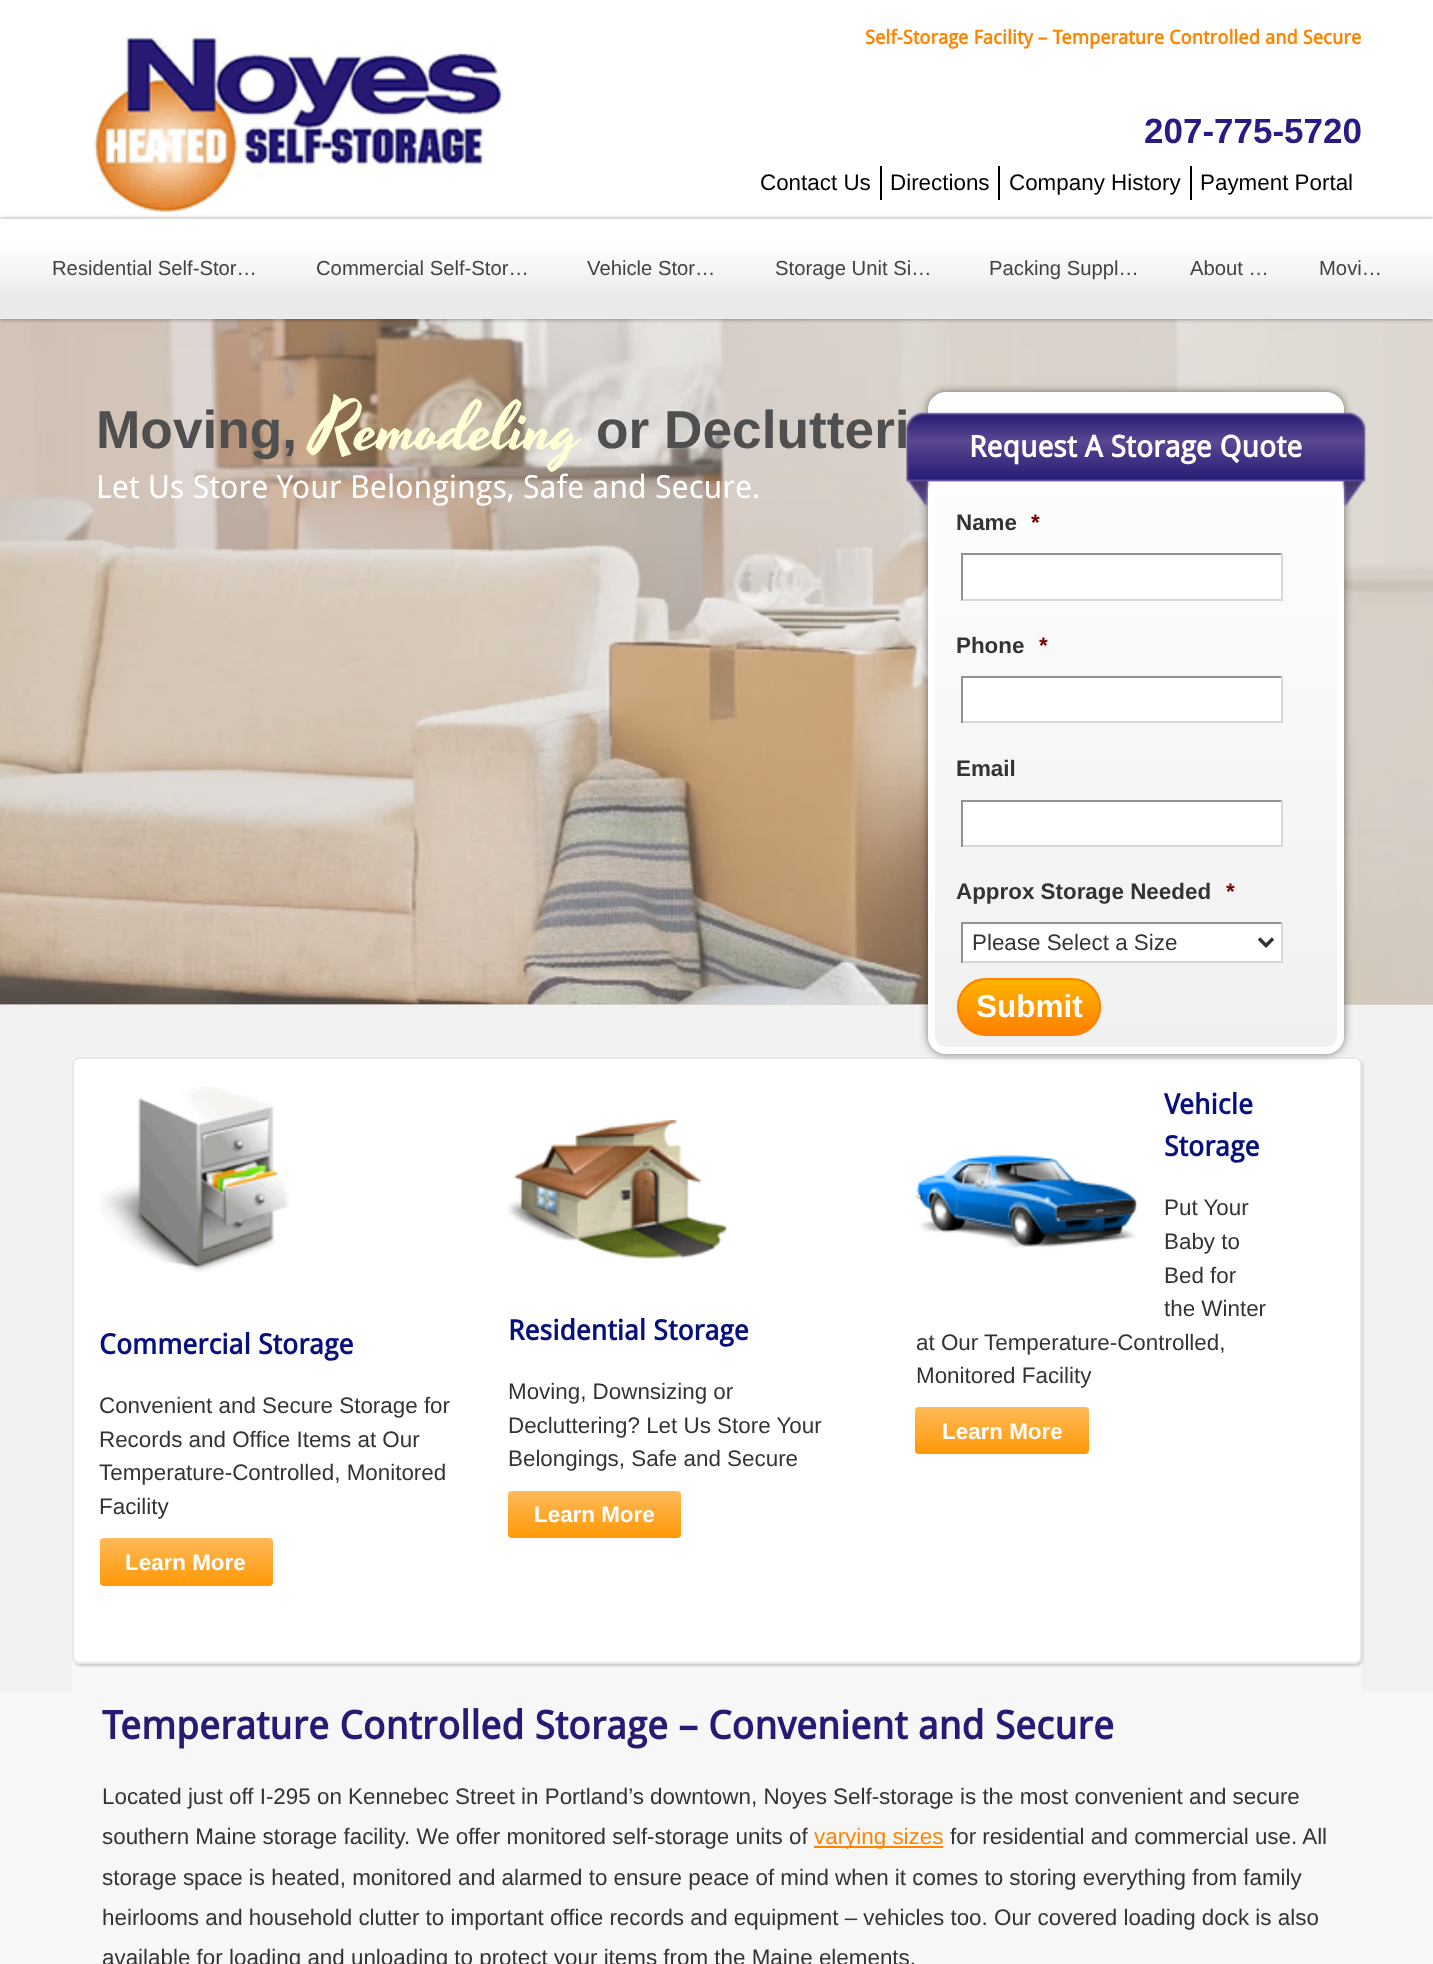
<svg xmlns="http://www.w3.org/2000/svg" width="1433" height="1964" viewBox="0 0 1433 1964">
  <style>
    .t1 { font: bold 19.25px Droid Sans; fill: #ff8500; }
    .t2 { font: bold 35px Liberation Sans; fill: #281b85; }
    .t3 { font: 22.4px Liberation Sans; fill: #000; }
    .t4 { font: 20.25px Liberation Sans; fill: #424242; }
    .t5 { font: bold 53.25px Liberation Sans; fill: #4f4f4f; }
    .t6 { font: 69px Yesteryear; fill: #ffffd3; }
    .t7 { font: 31.9px Droid Sans; fill: #fff; }
    .t8 { font: bold 29.75px Droid Sans; fill: #fff; }
    .t9 { font: bold 22.4px Liberation Sans; fill: #333; }
    .t10 { font: bold 22.4px Liberation Sans; fill: #790000; }
    .t11 { font: 22.4px Liberation Sans; fill: #333; }
    .t12 { font: bold 31.5px Liberation Sans; fill: #fff; }
    .t13 { font: bold 28px Droid Sans; fill: #06117f; }
    .t14 { font: bold 22.4px Liberation Sans; fill: #fff; }
    .t15 { font: bold 39.2px Droid Sans; fill: #251b74; }
    .t16 { font: 22.4px Liberation Sans; fill: #ff8500; }
  </style>
  <defs>
    <clipPath id="clip1"><rect x="928" y="392" width="416" height="662" rx="18"/></clipPath>
    <linearGradient id="g1" gradientUnits="userSpaceOnUse" x1="1136" y1="399" x2="1136" y2="1047"><stop offset="0" stop-color="#fff"/><stop offset="1" stop-color="#f0f0f0"/></linearGradient>
    <clipPath id="clip2"><rect x="957" y="978" width="144" height="58" rx="29"/></clipPath>
    <linearGradient id="g2" gradientUnits="userSpaceOnUse" x1="1029" y1="980" x2="1029" y2="1034"><stop offset="0" stop-color="#ffb400"/><stop offset="1" stop-color="#ff8000"/></linearGradient>
    <linearGradient id="g3" gradientUnits="userSpaceOnUse" x1="186" y1="1538" x2="186" y2="1586"><stop offset="0" stop-color="#ffba59"/><stop offset="1" stop-color="#ff9806"/></linearGradient>
    <linearGradient id="g4" gradientUnits="userSpaceOnUse" x1="594" y1="1491" x2="594" y2="1538"><stop offset="0" stop-color="#ffba59"/><stop offset="1" stop-color="#ff9806"/></linearGradient>
    <linearGradient id="g5" gradientUnits="userSpaceOnUse" x1="1002" y1="1407" x2="1002" y2="1454"><stop offset="0" stop-color="#ffba59"/><stop offset="1" stop-color="#ff9806"/></linearGradient>
  </defs>
  <rect width="100%" height="100%" fill="#f7f7f7"/>
  <rect x="0" y="0" width="1433" height="219" fill="#fff"/>
  <image x="91" y="35" width="412" height="180" href="images/1.png"/>
  <text x="865" y="44" class="t1">Self-Storage Facility – Temperature Controlled and Secure</text>
  <text x="1144" y="143" class="t2">207-775-5720</text>
  <text x="760" y="190" class="t3">Contact Us</text>
  <rect x="880" y="166" width="2" height="34" fill="#000"/>
  <text x="890" y="190" class="t3">Directions</text>
  <rect x="998" y="166" width="2" height="34" fill="#000"/>
  <text x="1009" y="190" class="t3">Company History</text>
  <rect x="1190" y="166" width="2" height="34" fill="#000"/>
  <text x="1200" y="190" class="t3">Payment Portal</text>
  <rect x="0" y="319" width="1433" height="686" fill="#ddd8d0"/>
  <image x="0" y="319" width="1433" height="686" href="images/3.png"/>
  <rect x="0" y="219" width="1433" height="100" fill="#0000007d" filter="blur(2px)"/>
  <rect x="0" y="318" width="1433" height="1" fill="#efefef"/>
  <image x="0" y="218" width="1433" height="100" href="images/2.png"/>
  <text x="52" y="275" class="t4">Residential Self-Stor…</text>
  <text x="316" y="275" class="t4">Commercial Self-Stor…</text>
  <text x="587" y="275" class="t4">Vehicle Stor…</text>
  <text x="775" y="275" class="t4">Storage Unit Si…</text>
  <text x="989" y="275" class="t4">Packing Suppl…</text>
  <text x="1190" y="275" class="t4">About …</text>
  <text x="1319" y="275" class="t4">Movi…</text>
  <text x="96" y="448" class="t5">Moving,</text>
  <text x="312" y="448" class="t6">Remodeling</text>
  <text x="596" y="448" class="t5">or Declutteri</text>
  <text x="96" y="498" class="t7">Let Us Store Your Belongings, Safe and Secure.</text>
  <rect x="0" y="1005" width="1433" height="686" fill="#f1f1f1"/>
  <rect x="72" y="1057" width="1290" height="634" fill="#f7f7f7"/>
  <rect x="74" y="1059" width="1289" height="607" rx="7" fill="#ccc" filter="blur(1px)"/>
  <rect x="73" y="1058" width="1288" height="605" rx="6" fill="#fff" stroke="#e8e8e8" stroke-width="2"/>
  <rect x="928" y="392" width="416" height="662" rx="18" fill="#00000080" filter="blur(4.5px)"/>
  <g clip-path="url(#clip1)">
    <rect x="928" y="399" width="416" height="648" fill="url(#g1)"/>
  </g>
  <rect x="931.5" y="395.5" width="409" height="655" rx="14.5" fill="none" stroke="#fff" stroke-width="7"/>
  <image x="906" y="412" width="460" height="94" href="images/4.png"/>
  <text x="969" y="457" class="t8">Request A Storage Quote</text>
  <text x="956" y="530" class="t9">Name</text>
  <text x="1031" y="530" class="t10">*</text>
  <rect x="963" y="555" width="318" height="44" fill="#fff"/>
  <rect x="961" y="553" width="322" height="2" fill="#929292"/>
  <rect x="1281" y="553" width="2" height="47" fill="#d7d7d7"/>
  <rect x="961" y="599" width="322" height="2" fill="#d7d7d7"/>
  <rect x="961" y="553" width="2" height="47" fill="#929292"/>
  <text x="956" y="653" class="t9">Phone</text>
  <text x="1039" y="653" class="t10">*</text>
  <rect x="963" y="678" width="318" height="43" fill="#fff"/>
  <rect x="961" y="676" width="322" height="2" fill="#929292"/>
  <rect x="1281" y="676" width="2" height="47" fill="#d7d7d7"/>
  <rect x="961" y="721" width="322" height="2" fill="#d7d7d7"/>
  <rect x="961" y="676" width="2" height="47" fill="#929292"/>
  <text x="956" y="776" class="t9">Email</text>
  <rect x="963" y="802" width="318" height="43" fill="#fff"/>
  <rect x="961" y="800" width="322" height="2" fill="#929292"/>
  <rect x="1281" y="800" width="2" height="47" fill="#d7d7d7"/>
  <rect x="961" y="845" width="322" height="2" fill="#d7d7d7"/>
  <rect x="961" y="800" width="2" height="47" fill="#929292"/>
  <text x="956" y="899" class="t9">Approx Storage Needed</text>
  <text x="1226" y="899" class="t10">*</text>
  <rect x="963" y="924" width="318" height="37" fill="#fff"/>
  <rect x="961" y="922" width="322" height="2" fill="#929292"/>
  <rect x="1281" y="922" width="2" height="41" fill="#d7d7d7"/>
  <rect x="961" y="961" width="322" height="2" fill="#d7d7d7"/>
  <rect x="961" y="922" width="2" height="41" fill="#929292"/>
  <path d="M1259 938.5L1266 945.5L1273 938.5" fill="none" stroke="#333" stroke-width="3.5"/>
  <text x="972" y="950" class="t11">Please Select a Size</text>
  <g clip-path="url(#clip2)">
    <rect x="957" y="980" width="144" height="54" fill="url(#g2)"/>
  </g>
  <rect x="958" y="979" width="142" height="56" rx="28" fill="none" stroke="#ff8300" stroke-width="2"/>
  <text x="976" y="1017" class="t12">Submit</text>
  <image x="100" y="1085" width="189" height="187" href="images/5.png"/>
  <text x="99" y="1354" class="t13">Commercial Storage</text>
  <text x="99" y="1413" class="t11">Convenient and Secure Storage for</text>
  <text x="99" y="1447" class="t11">Records and Office Items at Our</text>
  <text x="99" y="1480" class="t11">Temperature-Controlled, Monitored</text>
  <text x="99" y="1514" class="t11">Facility</text>
  <rect x="100" y="1538" width="173" height="48" rx="4" fill="url(#g3)"/>
  <text x="125" y="1570" class="t14">Learn More</text>
  <image x="507" y="1120" width="220" height="139" href="images/6.png"/>
  <text x="508" y="1340" class="t13">Residential Storage</text>
  <text x="508" y="1399" class="t11">Moving, Downsizing or</text>
  <text x="508" y="1433" class="t11">Decluttering? Let Us Store Your</text>
  <text x="508" y="1466" class="t11">Belongings, Safe and Secure</text>
  <rect x="508" y="1491" width="173" height="47" rx="4" fill="url(#g4)"/>
  <text x="534" y="1522" class="t14">Learn More</text>
  <text x="1164" y="1114" class="t13">Vehicle</text>
  <text x="1164" y="1156" class="t13">Storage</text>
  <image x="915" y="1155" width="223" height="93" href="images/7.png"/>
  <text x="1164" y="1215" class="t11">Put Your</text>
  <text x="1164" y="1249" class="t11">Baby to</text>
  <text x="1164" y="1283" class="t11">Bed for</text>
  <text x="1164" y="1316" class="t11">the Winter</text>
  <text x="916" y="1350" class="t11">at Our Temperature-Controlled,</text>
  <text x="916" y="1383" class="t11">Monitored Facility</text>
  <rect x="915" y="1407" width="174" height="47" rx="4" fill="url(#g5)"/>
  <text x="942" y="1439" class="t14">Learn More</text>
  <text x="102" y="1739" class="t15">Temperature Controlled Storage – Convenient and Secure</text>
  <text x="102" y="1804" class="t11">Located just off I-295 on Kennebec Street in Portland’s downtown, Noyes Self-storage is the most convenient and secure</text>
  <text x="102" y="1844" class="t11">southern Maine storage facility. We offer monitored self-storage units of</text>
  <rect x="814" y="1846" width="129" height="2" fill="#ff8500"/>
  <text x="814" y="1844" class="t16">varying sizes</text>
  <text x="950" y="1844" class="t11">for residential and commercial use. All</text>
  <text x="102" y="1885" class="t11">storage space is heated, monitored and alarmed to ensure peace of mind when it comes to storing everything from family</text>
  <text x="102" y="1925" class="t11">heirlooms and household clutter to important office records and equipment – vehicles too. Our covered loading dock is also</text>
  <text x="102" y="1965" class="t11">available for loading and unloading to protect your items from the Maine elements.</text>
</svg>
